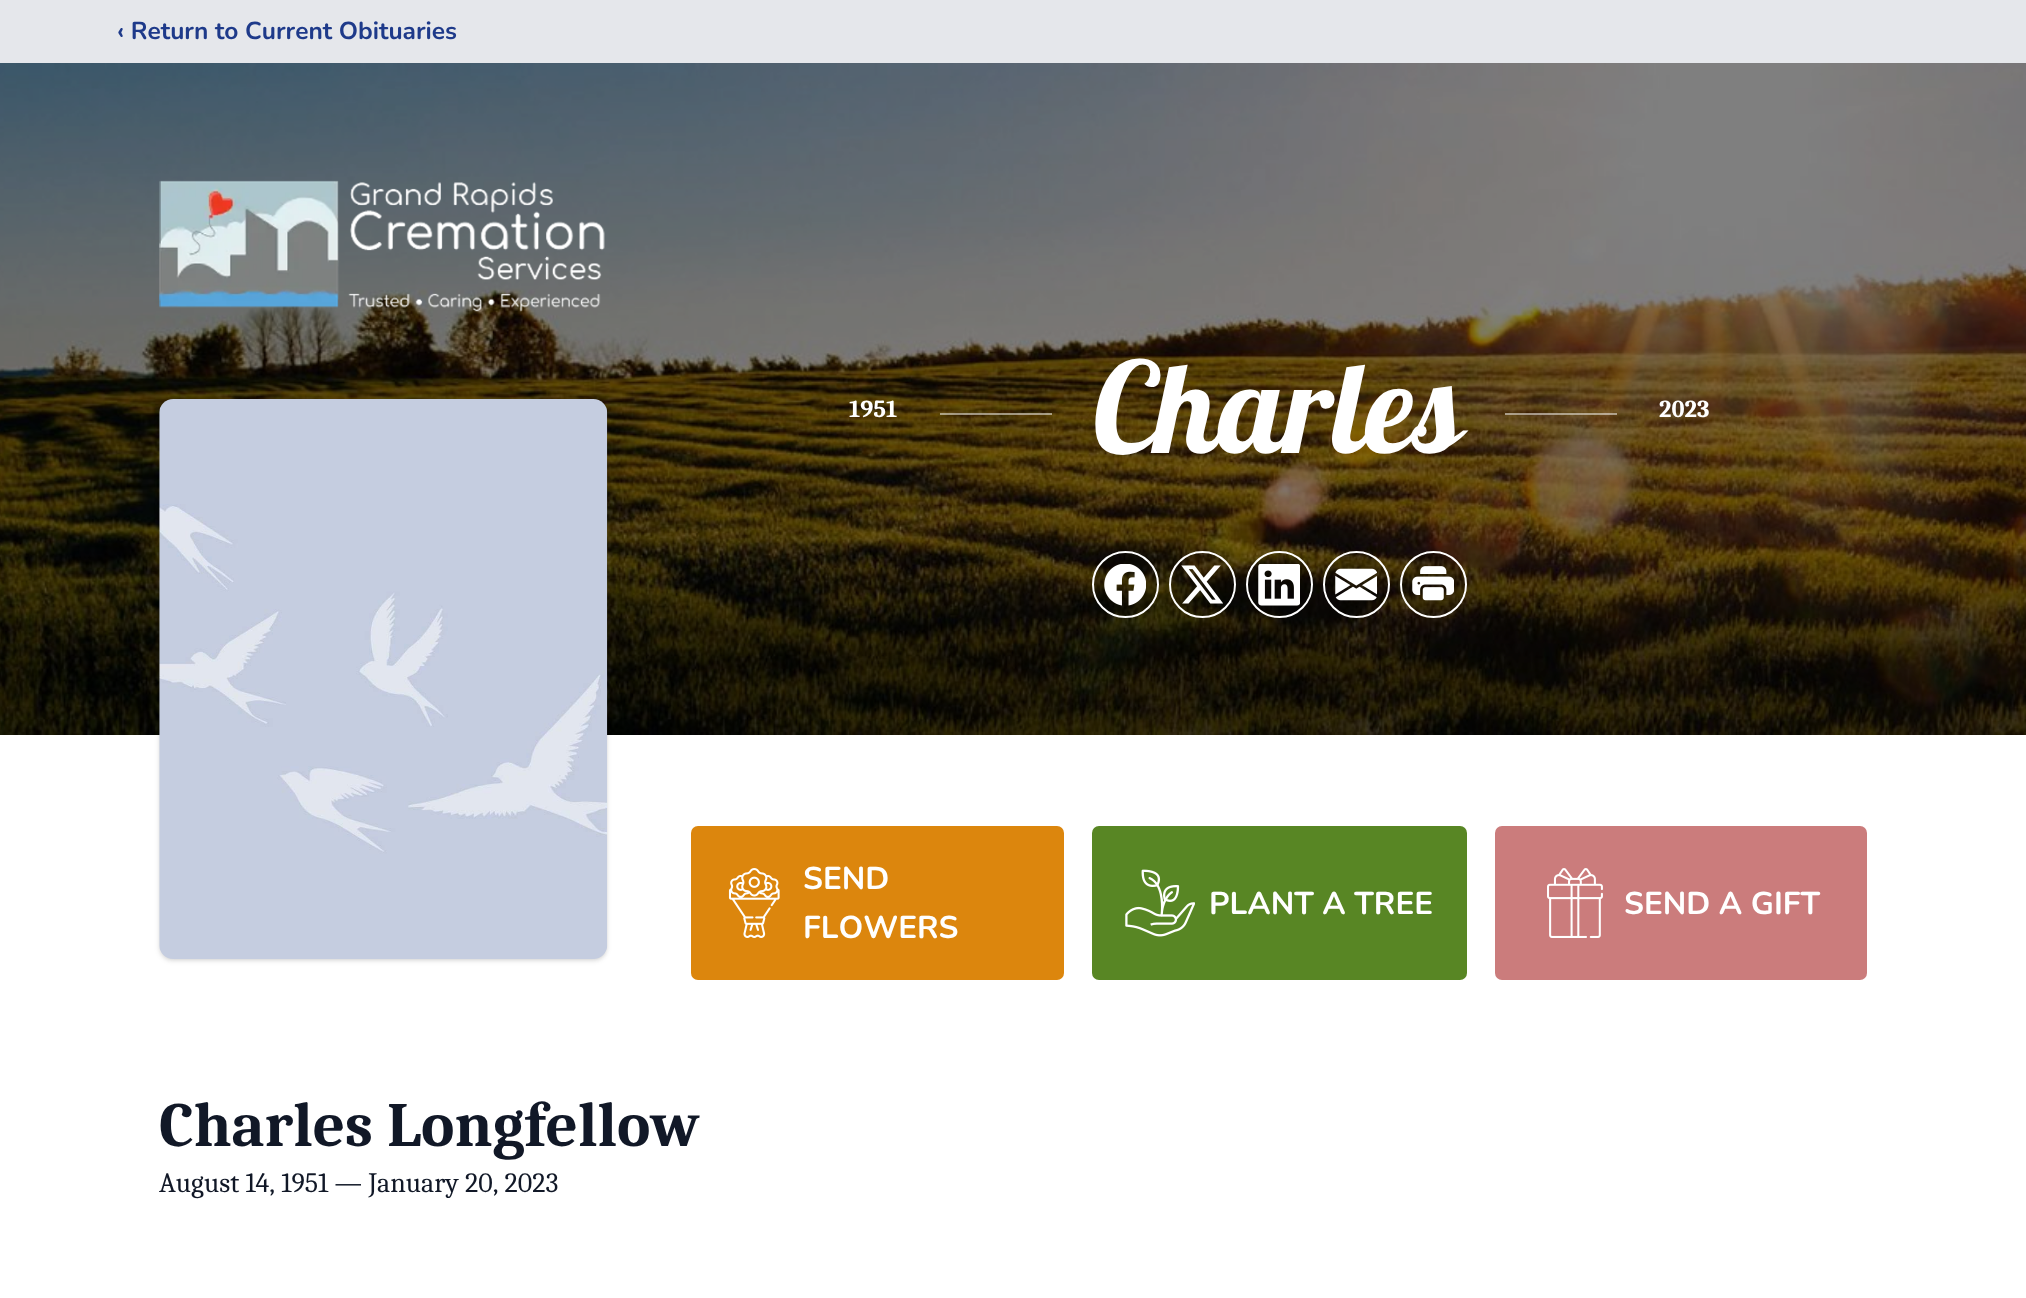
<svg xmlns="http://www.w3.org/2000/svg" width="2026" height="1298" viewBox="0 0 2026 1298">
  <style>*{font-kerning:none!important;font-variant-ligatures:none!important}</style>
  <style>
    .t1 { font: bold 24.5px Nunito; fill: #1e3a8a; }
    .t2 { font: bold 24.5px Caladea; fill: #fff; }
    .t3 { font: 126px Lobster; fill: #fff; }
    .t4 { font: bold 31.5px Nunito; fill: #fff; }
    .t5 { font: bold 63px Caladea; fill: #111827; }
    .t6 { font: 28px Caladea; fill: #111827; }
  </style>
  <rect width="100%" height="100%" fill="#fff"/>
  <rect x="0" y="0" width="2026" height="63" fill="#e5e7eb"/>
  <text x="117" y="39" class="t1">‹ Return to Current Obituaries</text>
  <image x="0" y="63" width="2026" height="672" href="images/1.png"/>
  <image x="159" y="180" width="446" height="132" href="images/2.png"/>
  <rect x="161" y="403" width="445" height="556" rx="12" fill="#0000001a" filter="blur(2px)"/>
  <rect x="159" y="401" width="448" height="560" rx="14" fill="#0000001a" filter="blur(2.5px)"/>
  <image x="159" y="399" width="449" height="560" href="images/3.png"/>
  <text x="849" y="417" class="t2">1951</text>
  <rect x="940" y="413" width="112" height="2" fill="#ffffff80"/>
  <text x="1093" y="453" class="t3">Charles</text>
  <rect x="1505" y="413" width="112" height="2" fill="#ffffff80"/>
  <text x="1659" y="417" class="t2">2023</text>
  <circle cx="1125.5" cy="584.5" r="32.5" fill="none" stroke="#fff" stroke-width="2"/>
  <circle cx="1125.5" cy="584.5" r="31.5" fill="#00000033"/>
  <image x="1104" y="564" width="42" height="42" href="images/4.png"/>
  <circle cx="1202.5" cy="584.5" r="32.5" fill="none" stroke="#fff" stroke-width="2"/>
  <circle cx="1202.5" cy="584.5" r="31.5" fill="#00000033"/>
  <image x="1181" y="565" width="42" height="39" href="images/5.png"/>
  <circle cx="1279.5" cy="584.5" r="32.5" fill="none" stroke="#fff" stroke-width="2"/>
  <circle cx="1279.5" cy="584.5" r="31.5" fill="#00000033"/>
  <image x="1258" y="564" width="42" height="42" href="images/6.png"/>
  <circle cx="1356.5" cy="584.5" r="32.5" fill="none" stroke="#fff" stroke-width="2"/>
  <circle cx="1356.5" cy="584.5" r="31.5" fill="#00000033"/>
  <image x="1335" y="568" width="42" height="33" href="images/7.png"/>
  <circle cx="1433.5" cy="584.5" r="32.5" fill="none" stroke="#fff" stroke-width="2"/>
  <circle cx="1433.5" cy="584.5" r="31.5" fill="#00000033"/>
  <image x="1412" y="566" width="42" height="35" href="images/8.png"/>
  <rect x="691" y="826" width="373" height="154" rx="7" fill="#dc860d"/>
  <image x="728" y="868" width="52" height="70" href="images/9.png"/>
  <text x="803" y="889" class="t4">SEND</text>
  <text x="803" y="938" class="t4">FLOWERS</text>
  <rect x="1092" y="826" width="375" height="154" rx="7" fill="#588624"/>
  <image x="1125" y="869" width="70" height="68" href="images/10.png"/>
  <text x="1209" y="914" class="t4">PLANT A TREE</text>
  <rect x="1495" y="826" width="372" height="154" rx="7" fill="#cb7c7c"/>
  <image x="1547" y="868" width="56" height="70" href="images/11.png"/>
  <text x="1624" y="914" class="t4">SEND A GIFT</text>
  <text x="159" y="1146" class="t5">Charles Longfellow</text>
  <text x="159" y="1192" class="t6">August 14, 1951 — January 20, 2023</text>
</svg>
